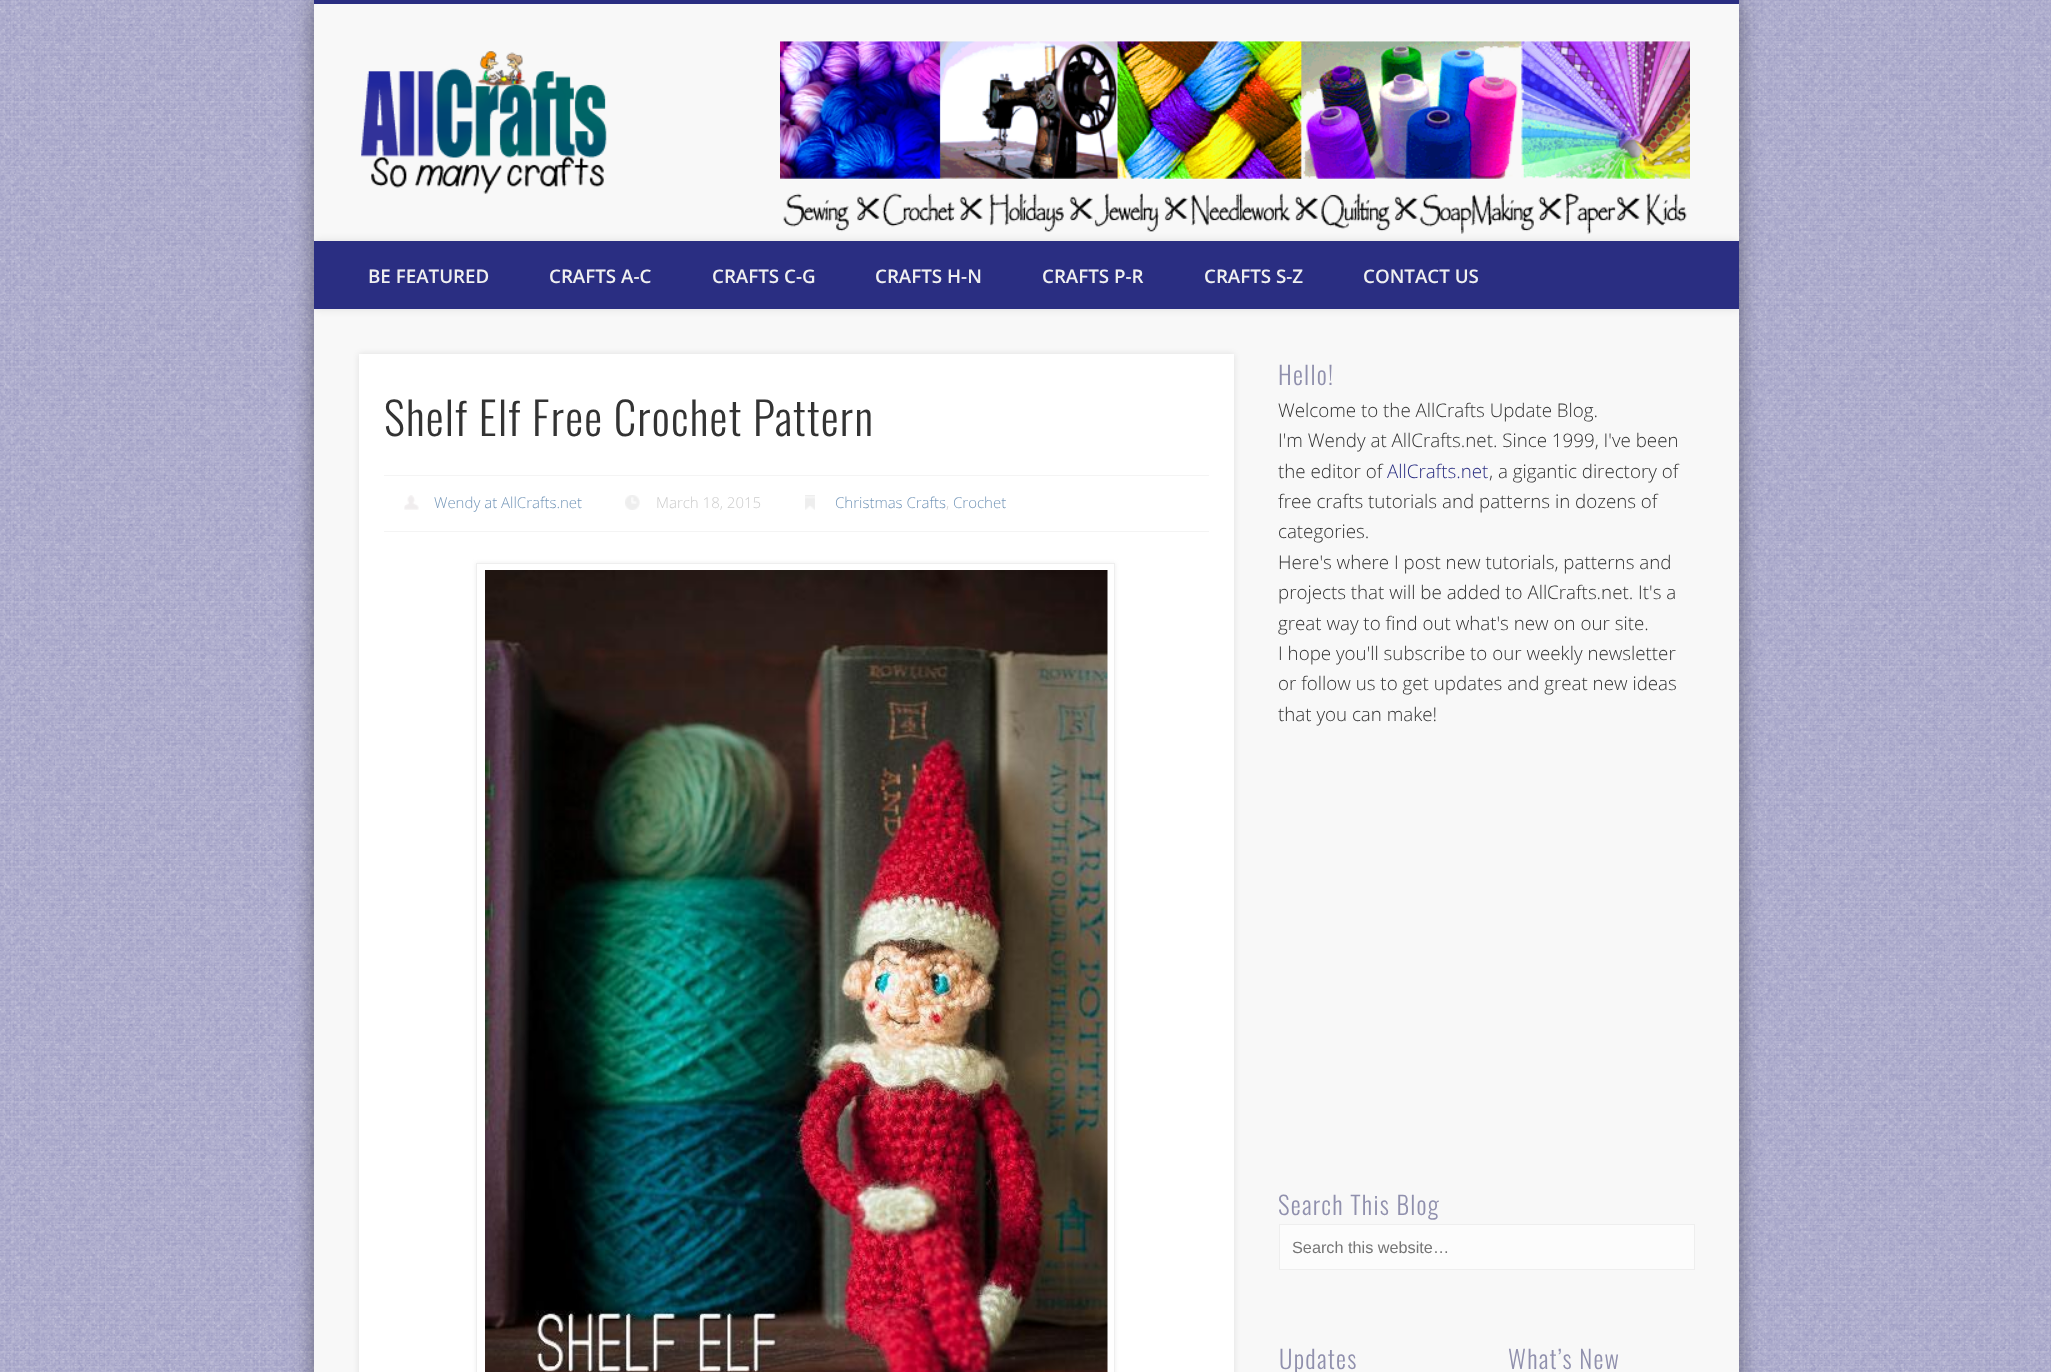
<svg xmlns="http://www.w3.org/2000/svg" width="2051" height="1372" viewBox="0 0 2051 1372">
  <style>
    .t1 { font: 600 18.75px Open Sans; fill: #f0f0f0; }
    .t2 { font: 300 45px Oswald; letter-spacing: 1.25px; fill: #333; }
    .t3 { font: 300 15px Open Sans; fill: #7597b9; }
    .t4 { font: 300 15px Open Sans; fill: #ccc; }
    .t5 { font: 300 25px Oswald; letter-spacing: 1.25px; fill: #9090ad; }
    .t6 { font: 300 18.75px Open Sans; fill: #333; }
    .t7 { font: 300 18.75px Open Sans; fill: #2a2e82; }
    .t8 { font: 16.25px Liberation Sans; fill: #757575; }
  </style>
  <defs>
    <clipPath id="clip1"><rect x="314" y="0" width="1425" height="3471"/></clipPath>
  </defs>
  <rect width="100%" height="100%" fill="#fff"/>
  <image x="0" y="0" width="2051" height="1372" href="images/1.png"/>
  <rect x="314" y="0" width="1425" height="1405" fill="#00000066" filter="blur(11px)"/>
  <rect x="314" y="4" width="1425" height="1368" fill="#f8f8f8"/>
  <rect x="314" y="0" width="1425" height="4" fill="#2a2e82"/>
  <image x="361" y="51" width="246" height="143" href="images/2.png"/>
  <image x="780" y="41" width="910" height="193" href="images/3.png"/>
  <g clip-path="url(#clip1)">
    <rect x="314" y="241" width="1425" height="68" fill="#0000001a" filter="blur(4.5px)"/>
  </g>
  <rect x="314" y="241" width="1425" height="68" fill="#2a2e82"/>
  <text x="368" y="283" class="t1">BE FEATURED</text>
  <text x="549" y="283" class="t1">CRAFTS A-C</text>
  <text x="712" y="283" class="t1">CRAFTS C-G</text>
  <text x="875" y="283" class="t1">CRAFTS H-N</text>
  <text x="1042" y="283" class="t1">CRAFTS P-R</text>
  <text x="1204" y="283" class="t1">CRAFTS S-Z</text>
  <text x="1363" y="283" class="t1">CONTACT US</text>
  <rect x="359" y="354" width="875" height="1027" fill="#0000001a" filter="blur(3px)"/>
  <rect x="359" y="354" width="875" height="1018" fill="#fff"/>
  <text x="384" y="436" class="t2">Shelf Elf Free Crochet Pattern</text>
  <rect x="384" y="475" width="825" height="1" fill="#f4f4f4"/>
  <rect x="384" y="531" width="825" height="1" fill="#f4f4f4"/>
  <image x="404" y="495" width="15" height="15" href="images/4.png"/>
  <text x="434" y="508" class="t3">Wendy at AllCrafts.net</text>
  <image x="625" y="495" width="15" height="15" href="images/5.png"/>
  <text x="656" y="508" class="t4">March 18, 2015</text>
  <image x="805" y="495" width="10" height="15" href="images/6.png"/>
  <text x="835" y="508" class="t3">Christmas Crafts</text>
  <text x="946" y="508" class="t4">,</text>
  <text x="953" y="508" class="t3">Crochet</text>
  <rect x="476" y="563" width="639" height="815" fill="#eee" filter="blur(2px)"/>
  <rect x="476.5" y="563.5" width="638" height="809" fill="#fff" stroke="#eee"/>
  <image x="485" y="570" width="623" height="802" href="images/7.png"/>
  <text x="1278" y="385" class="t5">Hello!</text>
  <text x="1278" y="417" class="t6">Welcome to the AllCrafts Update Blog.</text>
  <text x="1278" y="447" class="t6">I'm Wendy at AllCrafts.net. Since 1999, I've been</text>
  <text x="1278" y="478" class="t6">the editor of</text>
  <text x="1387" y="478" class="t7">AllCrafts.net</text>
  <text x="1489" y="478" class="t6">, a gigantic directory of</text>
  <text x="1278" y="508" class="t6">free crafts tutorials and patterns in dozens of</text>
  <text x="1278" y="538" class="t6">categories.</text>
  <text x="1278" y="569" class="t6">Here's where I post new tutorials, patterns and</text>
  <text x="1278" y="599" class="t6">projects that will be added to AllCrafts.net. It's a</text>
  <text x="1278" y="630" class="t6">great way to find out what's new on our site.</text>
  <text x="1278" y="660" class="t6">I hope you'll subscribe to our weekly newsletter</text>
  <text x="1278" y="690" class="t6">or follow us to get updates and great new ideas</text>
  <text x="1278" y="721" class="t6">that you can make!</text>
  <text x="1278" y="1215" class="t5">Search This Blog</text>
  <rect x="1279.5" y="1224.5" width="415" height="45" fill="#fcfcfc" stroke="#eee"/>
  <text x="1292" y="1253" class="t8">Search this website…</text>
  <text x="1279" y="1369" class="t5">Updates</text>
  <text x="1508" y="1369" class="t5">What’s New</text>
</svg>
